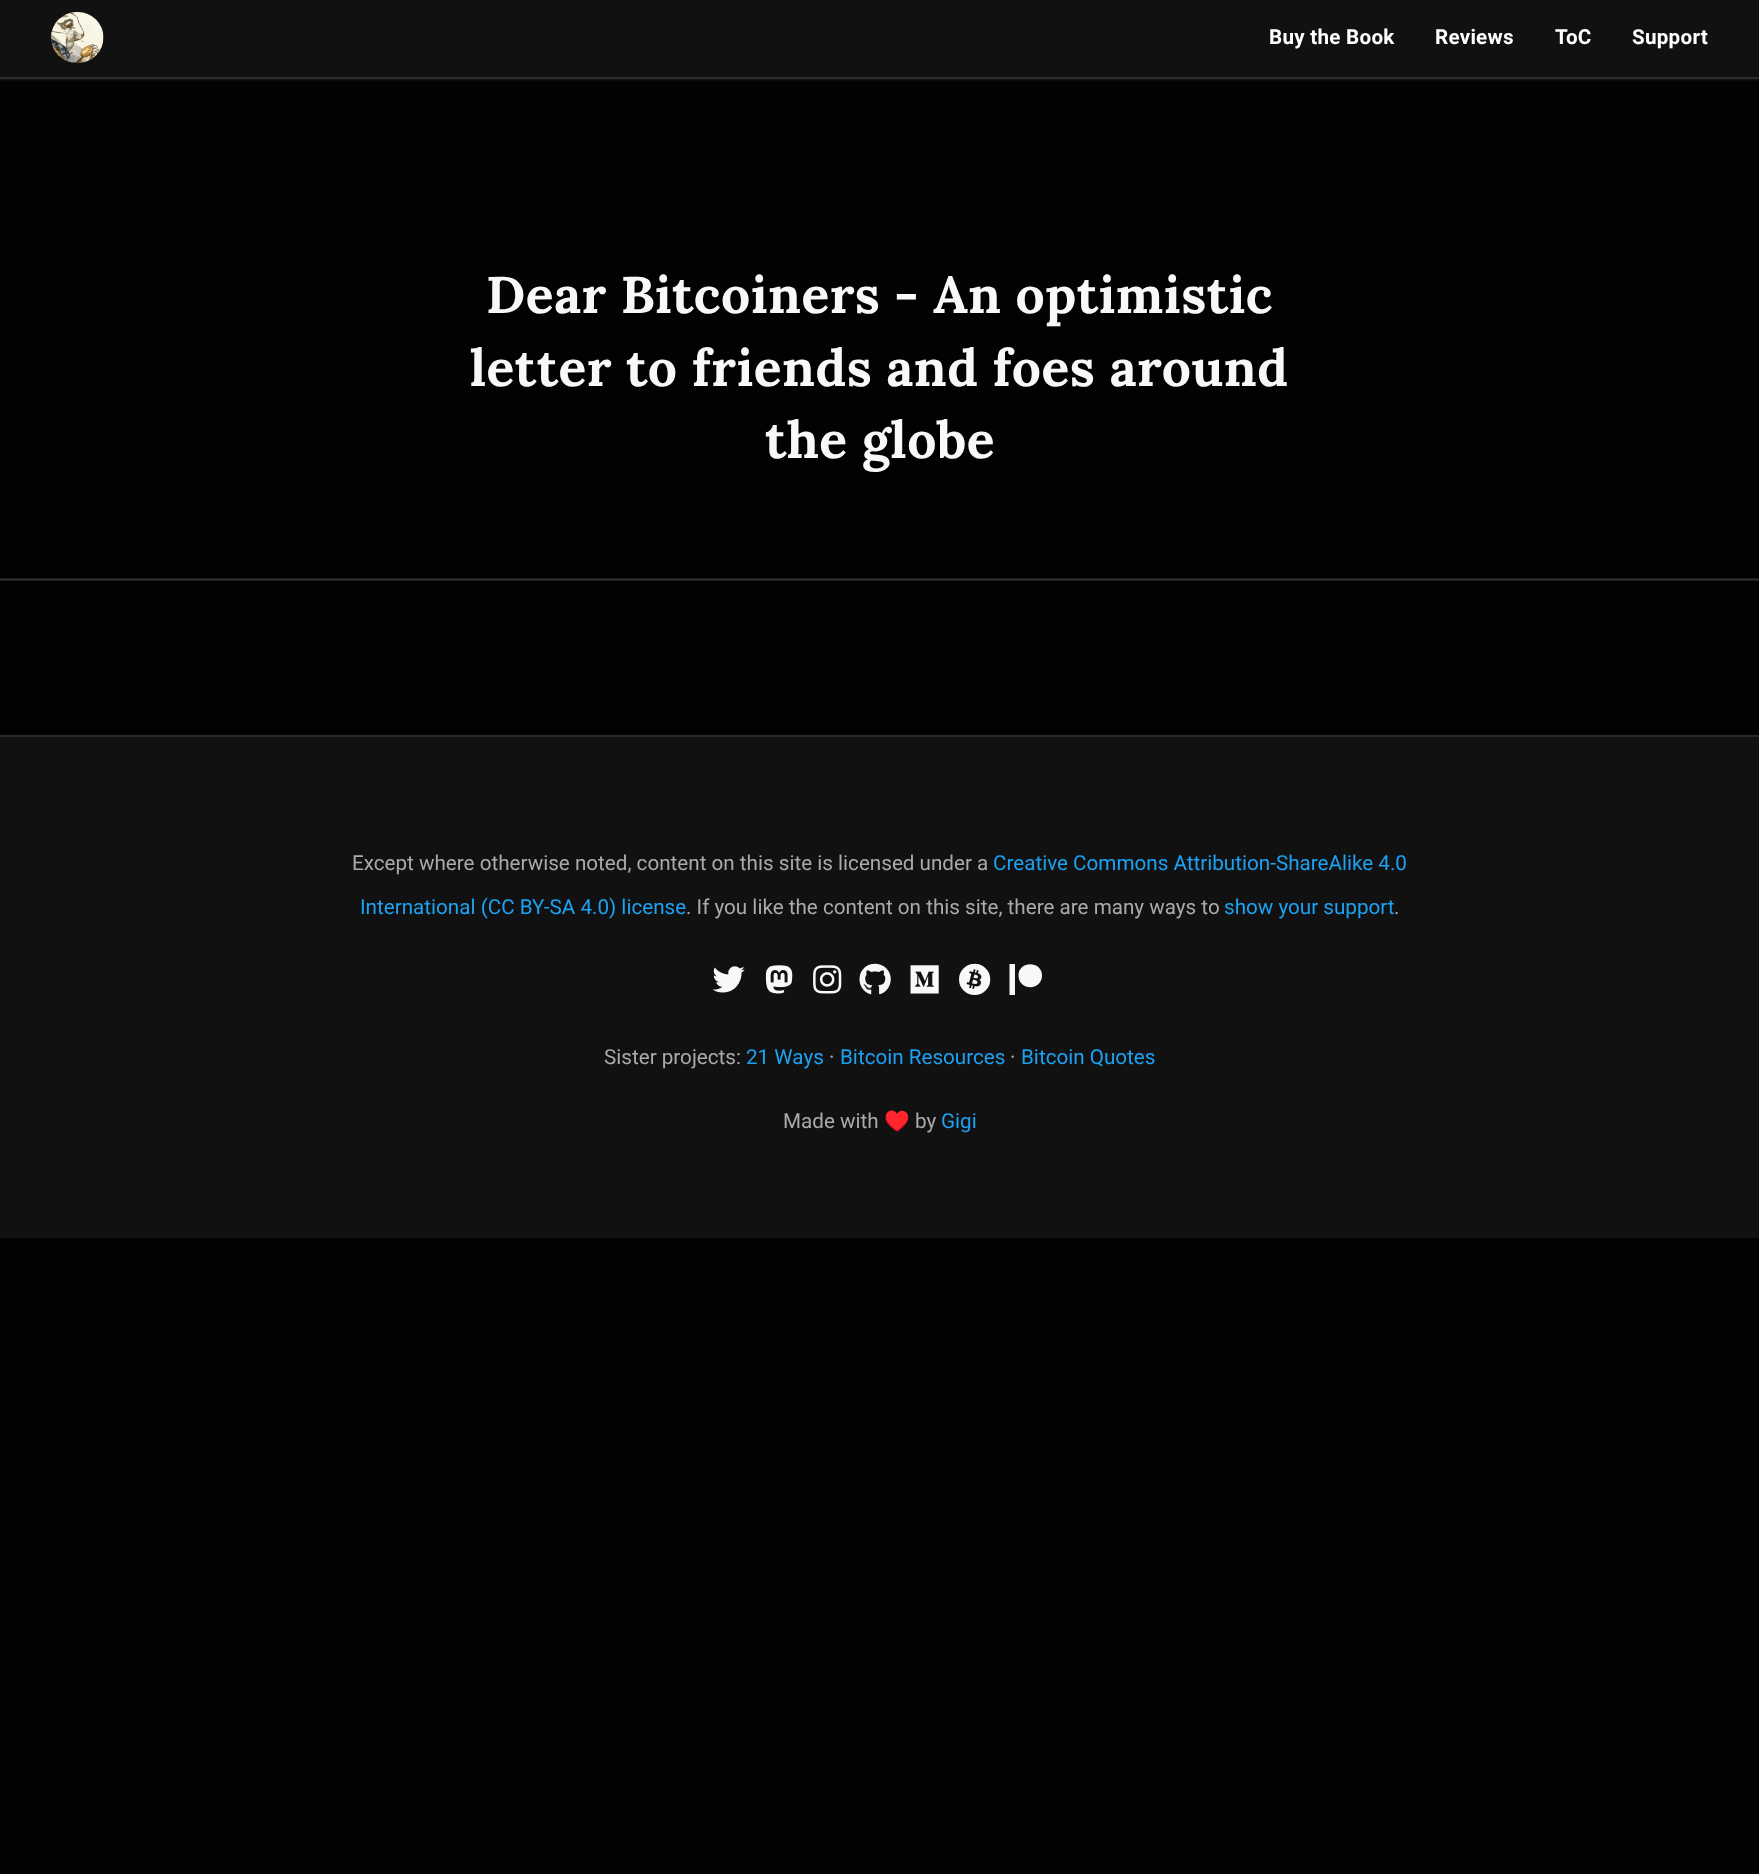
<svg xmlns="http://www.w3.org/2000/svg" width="1759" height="1874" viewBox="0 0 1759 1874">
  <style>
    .t1 { font: bold 20.65px Roboto; letter-spacing: 0.25px; fill: #fff; }
    .t2 { font: bold 51.6px Lora; letter-spacing: 0.5px; fill: #f8f8f8; }
    .t3 { font: 20.65px Roboto; fill: #aaa; }
    .t4 { font: 20.65px Roboto; fill: #1da1f2; }
    .t5 { font: 20.65px Noto Color Emoji; fill: #aaa; }
  </style>
  <rect width="100%" height="100%" fill="#020202"/>
  <rect x="0" y="580" width="1759" height="1" fill="#1b1b1b"/>
  <rect x="0" y="2" width="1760" height="78" fill="#ffffff1a" filter="blur(1px)"/>
  <rect x="0" y="0" width="1759" height="78" fill="#111"/>
  <rect x="0" y="77" width="1759" height="2" fill="#ffffff1a"/>
  <image x="51" y="12" width="53" height="51" href="images/1.png"/>
  <text x="1269" y="44" class="t1">Buy the Book</text>
  <text x="1435" y="44" class="t1">Reviews</text>
  <text x="1555" y="44" class="t1">ToC</text>
  <text x="1632" y="44" class="t1">Support</text>
  <rect x="0" y="578" width="1759" height="1" fill="#1b1b1b"/>
  <rect x="0" y="579" width="1759" height="1" fill="#323232"/>
  <text x="486" y="313" class="t2">Dear Bitcoiners - An optimistic</text>
  <text x="470" y="386" class="t2">letter to friends and foes around</text>
  <text x="765" y="458" class="t2">the globe</text>
  <rect x="0" y="737" width="1759" height="501" fill="#111"/>
  <rect x="0" y="735" width="1759" height="2" fill="#292929"/>
  <text x="352" y="870" class="t3">Except where otherwise noted, content on this site is licensed under a</text>
  <text x="993" y="870" class="t4">Creative Commons Attribution-ShareAlike 4.0</text>
  <text x="360" y="914" class="t4">International (CC BY-SA 4.0) license</text>
  <text x="686" y="914" class="t3">. If you like the content on this site, there are many ways to</text>
  <text x="1224" y="914" class="t4">show your support</text>
  <text x="1394" y="914" class="t3">.</text>
  <image x="712" y="966" width="33" height="27" href="images/2.png"/>
  <image x="765" y="965" width="28" height="29" href="images/3.png"/>
  <image x="813" y="965" width="29" height="29" href="images/4.png"/>
  <image x="859" y="963" width="32" height="32" href="images/5.png"/>
  <image x="910" y="965" width="29" height="29" href="images/6.png"/>
  <image x="959" y="963" width="32" height="32" href="images/7.png"/>
  <path d="M1042 975.5C1042 991 1018.5 991 1018.5 975.5C1018.5 960.5 1042 960.5 1042 975.5ZM1009.5 995V964H1015V995Z" fill="#f8f8f8"/>
  <text x="604" y="1064" class="t3">Sister projects:</text>
  <text x="746" y="1064" class="t4">21 Ways</text>
  <text x="829" y="1064" class="t3">·</text>
  <text x="840" y="1064" class="t4">Bitcoin Resources</text>
  <text x="1010" y="1064" class="t3">·</text>
  <text x="1021" y="1064" class="t4">Bitcoin Quotes</text>
  <text x="783" y="1128" class="t3">Made with</text>
  <text x="884" y="1128" class="t5">♥️</text>
  <text x="915" y="1128" class="t3">by</text>
  <text x="941" y="1128" class="t4">Gigi</text>
</svg>
